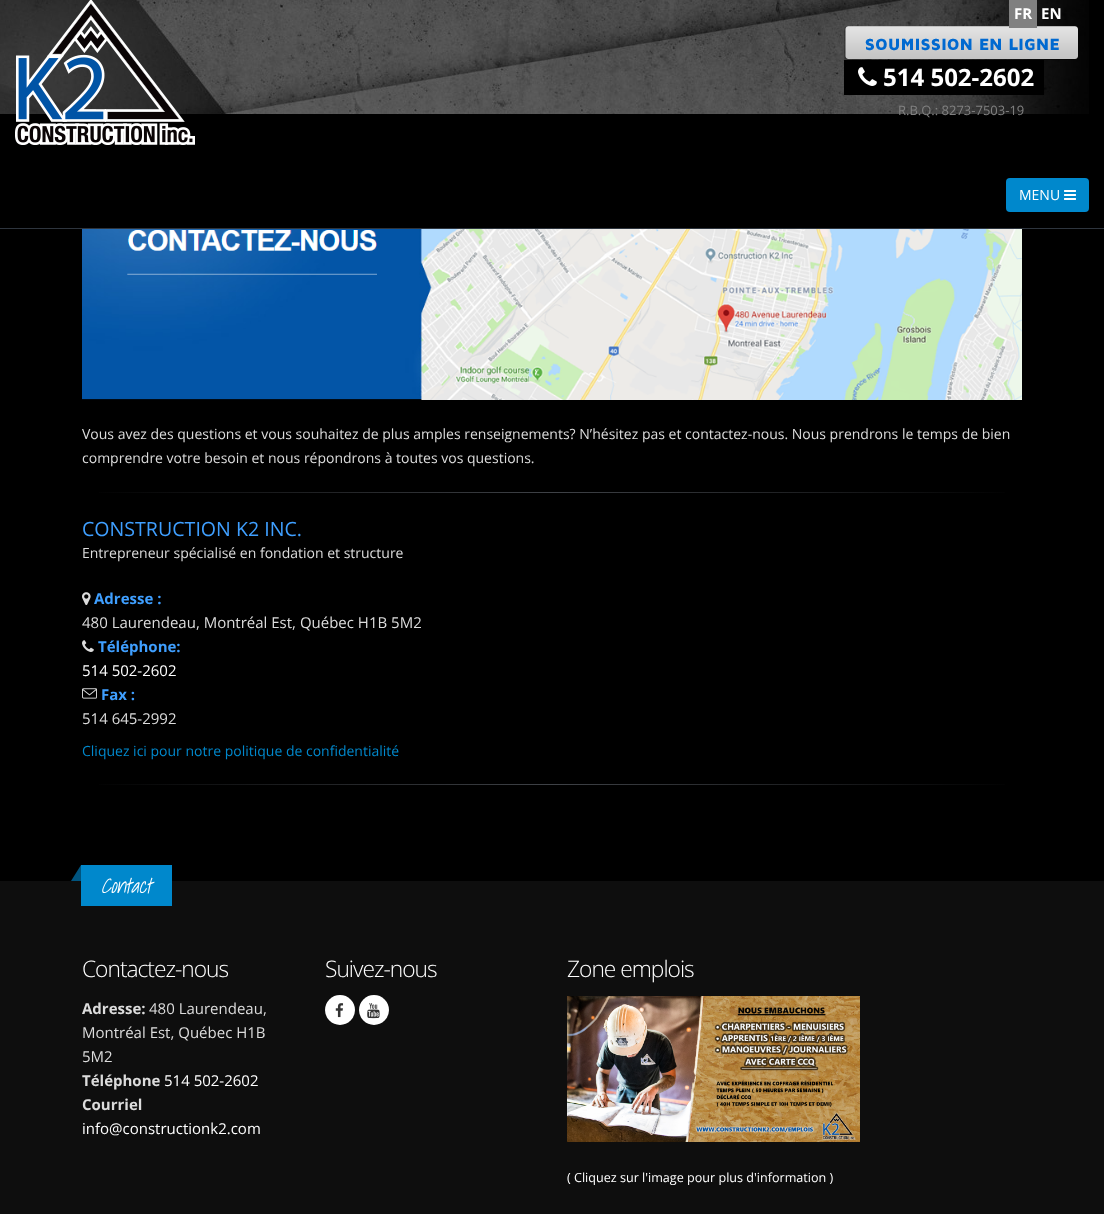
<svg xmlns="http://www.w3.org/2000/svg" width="1104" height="1214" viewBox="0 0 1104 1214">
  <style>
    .t1 { font: bold 15px Open Sans; fill: #fff; }
    .t2 { font: bold 24px Open Sans; fill: #fff; }
    .t3 { font: 13px Open Sans; fill: #808080; }
    .t4 { font: 14px Open Sans; fill: #fff; }
    .t5 { font: 14px Open Sans; fill: #dcdcdc; }
    .t6 { font: 19.6px Open Sans; fill: #3f9fff; }
    .t7 { font: bold 15px Open Sans; fill: #3f9fff; }
    .t8 { font: 15px Open Sans; fill: #dcdcdc; }
    .t9 { font: 15px Open Sans; fill: #fff; }
    .t10 { font: 14px Open Sans; fill: #08c; }
    .t11 { font: italic 300 20px Shadows Into Light; fill: #fff; }
    .t12 { font: 300 22.75px Open Sans; letter-spacing: -1px; fill: #fff; }
    .t13 { font: bold 15px Open Sans; fill: #dcdcdc; }
    .t14 { font: 12.6px Open Sans; fill: #fff; }
  </style>
  <defs>
    <linearGradient id="g1" gradientUnits="userSpaceOnUse" x1="82" y1="493" x2="1022" y2="492"><stop offset="0" stop-color="#000"/><stop offset="0.5" stop-color="#3f4247"/><stop offset="1" stop-color="#000"/></linearGradient>
    <linearGradient id="g2" gradientUnits="userSpaceOnUse" x1="82" y1="785" x2="1022" y2="785"><stop offset="0" stop-color="#000"/><stop offset="0.5" stop-color="#3f4247"/><stop offset="1" stop-color="#000"/></linearGradient>
  </defs>
  <rect width="100%" height="100%" fill="#000"/>
  <image x="0" y="0" width="1089" height="114" href="images/1.png"/>
  <rect x="0" y="228" width="1104" height="1" fill="#2e353e"/>
  <image x="15" y="0" width="180" height="145" href="images/2.png"/>
  <image x="844" y="26" width="234" height="34" href="images/3.png"/>
  <rect x="1009" y="0" width="28" height="28" fill="#808080"/>
  <text x="1014" y="19" class="t1">FR</text>
  <text x="1041" y="19" class="t1">EN</text>
  <rect x="844" y="60" width="200" height="35" fill="#000"/>
  <image x="858" y="67" width="19" height="19" href="images/4.png"/>
  <text x="883" y="86" class="t2">514 502-2602</text>
  <text x="898" y="115" class="t3">R.B.Q.: 8273-7503-19</text>
  <rect x="1006" y="178" width="83" height="34" rx="4" fill="#08c"/>
  <text x="1019" y="200" class="t4">MENU</text>
  <image x="1064" y="190" width="12" height="10" href="images/5.png"/>
  <image x="82" y="229" width="940" height="171" href="images/6.png"/>
  <text x="82" y="439" class="t5">Vous avez des questions et vous souhaitez de plus amples renseignements? N’hésitez pas et contactez-nous. Nous prendrons le temps de bien</text>
  <text x="82" y="463" class="t5">comprendre votre besoin et nous répondrons à toutes vos questions.</text>
  <rect x="99" y="492" width="906" height="1" fill="url(#g1)"/>
  <text x="82" y="536" class="t6">CONSTRUCTION K2 INC.</text>
  <text x="82" y="558" class="t5">Entrepreneur spécialisé en fondation et structure</text>
  <image x="82" y="592" width="9" height="13" href="images/7.png"/>
  <text x="94" y="604" class="t7">Adresse :</text>
  <text x="82" y="628" class="t8">480 Laurendeau, Montréal Est, Québec H1B 5M2</text>
  <image x="82" y="640" width="12" height="12" href="images/8.png"/>
  <text x="98" y="652" class="t7">Téléphone:</text>
  <text x="82" y="676" class="t9">514 502-2602</text>
  <image x="82" y="688" width="15" height="11" href="images/9.png"/>
  <text x="101" y="700" class="t7">Fax :</text>
  <text x="82" y="724" class="t8">514 645-2992</text>
  <text x="82" y="756" class="t10">Cliquez ici pour notre politique de confidentialité</text>
  <rect x="99" y="784" width="906" height="1" fill="url(#g2)"/>
  <rect x="0" y="881" width="1104" height="333" fill="#0e0e0e"/>
  <rect x="81" y="865" width="91" height="41" fill="#08c"/>
  <path d="M81 865V881H71Z" fill="#005580"/>
  <text x="101" y="893" class="t11">Contact</text>
  <text x="82" y="977" class="t12">Contactez-nous</text>
  <text x="82" y="1014" class="t13">Adresse:</text>
  <text x="149" y="1014" class="t8">480 Laurendeau,</text>
  <text x="82" y="1038" class="t8">Montréal Est, Québec H1B</text>
  <text x="82" y="1062" class="t8">5M2</text>
  <text x="82" y="1086" class="t13">Téléphone</text>
  <text x="164" y="1086" class="t9">514 502-2602</text>
  <text x="82" y="1110" class="t13">Courriel</text>
  <text x="82" y="1134" class="t9">info@constructionk2.com</text>
  <text x="325" y="977" class="t12">Suivez-nous</text>
  <circle cx="340" cy="1010" r="15" fill="#fff"/>
  <image x="335" y="1003" width="9" height="15" href="images/10.png"/>
  <circle cx="374" cy="1010" r="15" fill="#fff"/>
  <image x="367" y="1003" width="13" height="16" href="images/11.png"/>
  <text x="567" y="977" class="t12">Zone emplois</text>
  <image x="567" y="996" width="293" height="146" href="images/12.png"/>
  <text x="567" y="1182" class="t14">( Cliquez sur l'image pour plus d'information )</text>
</svg>
